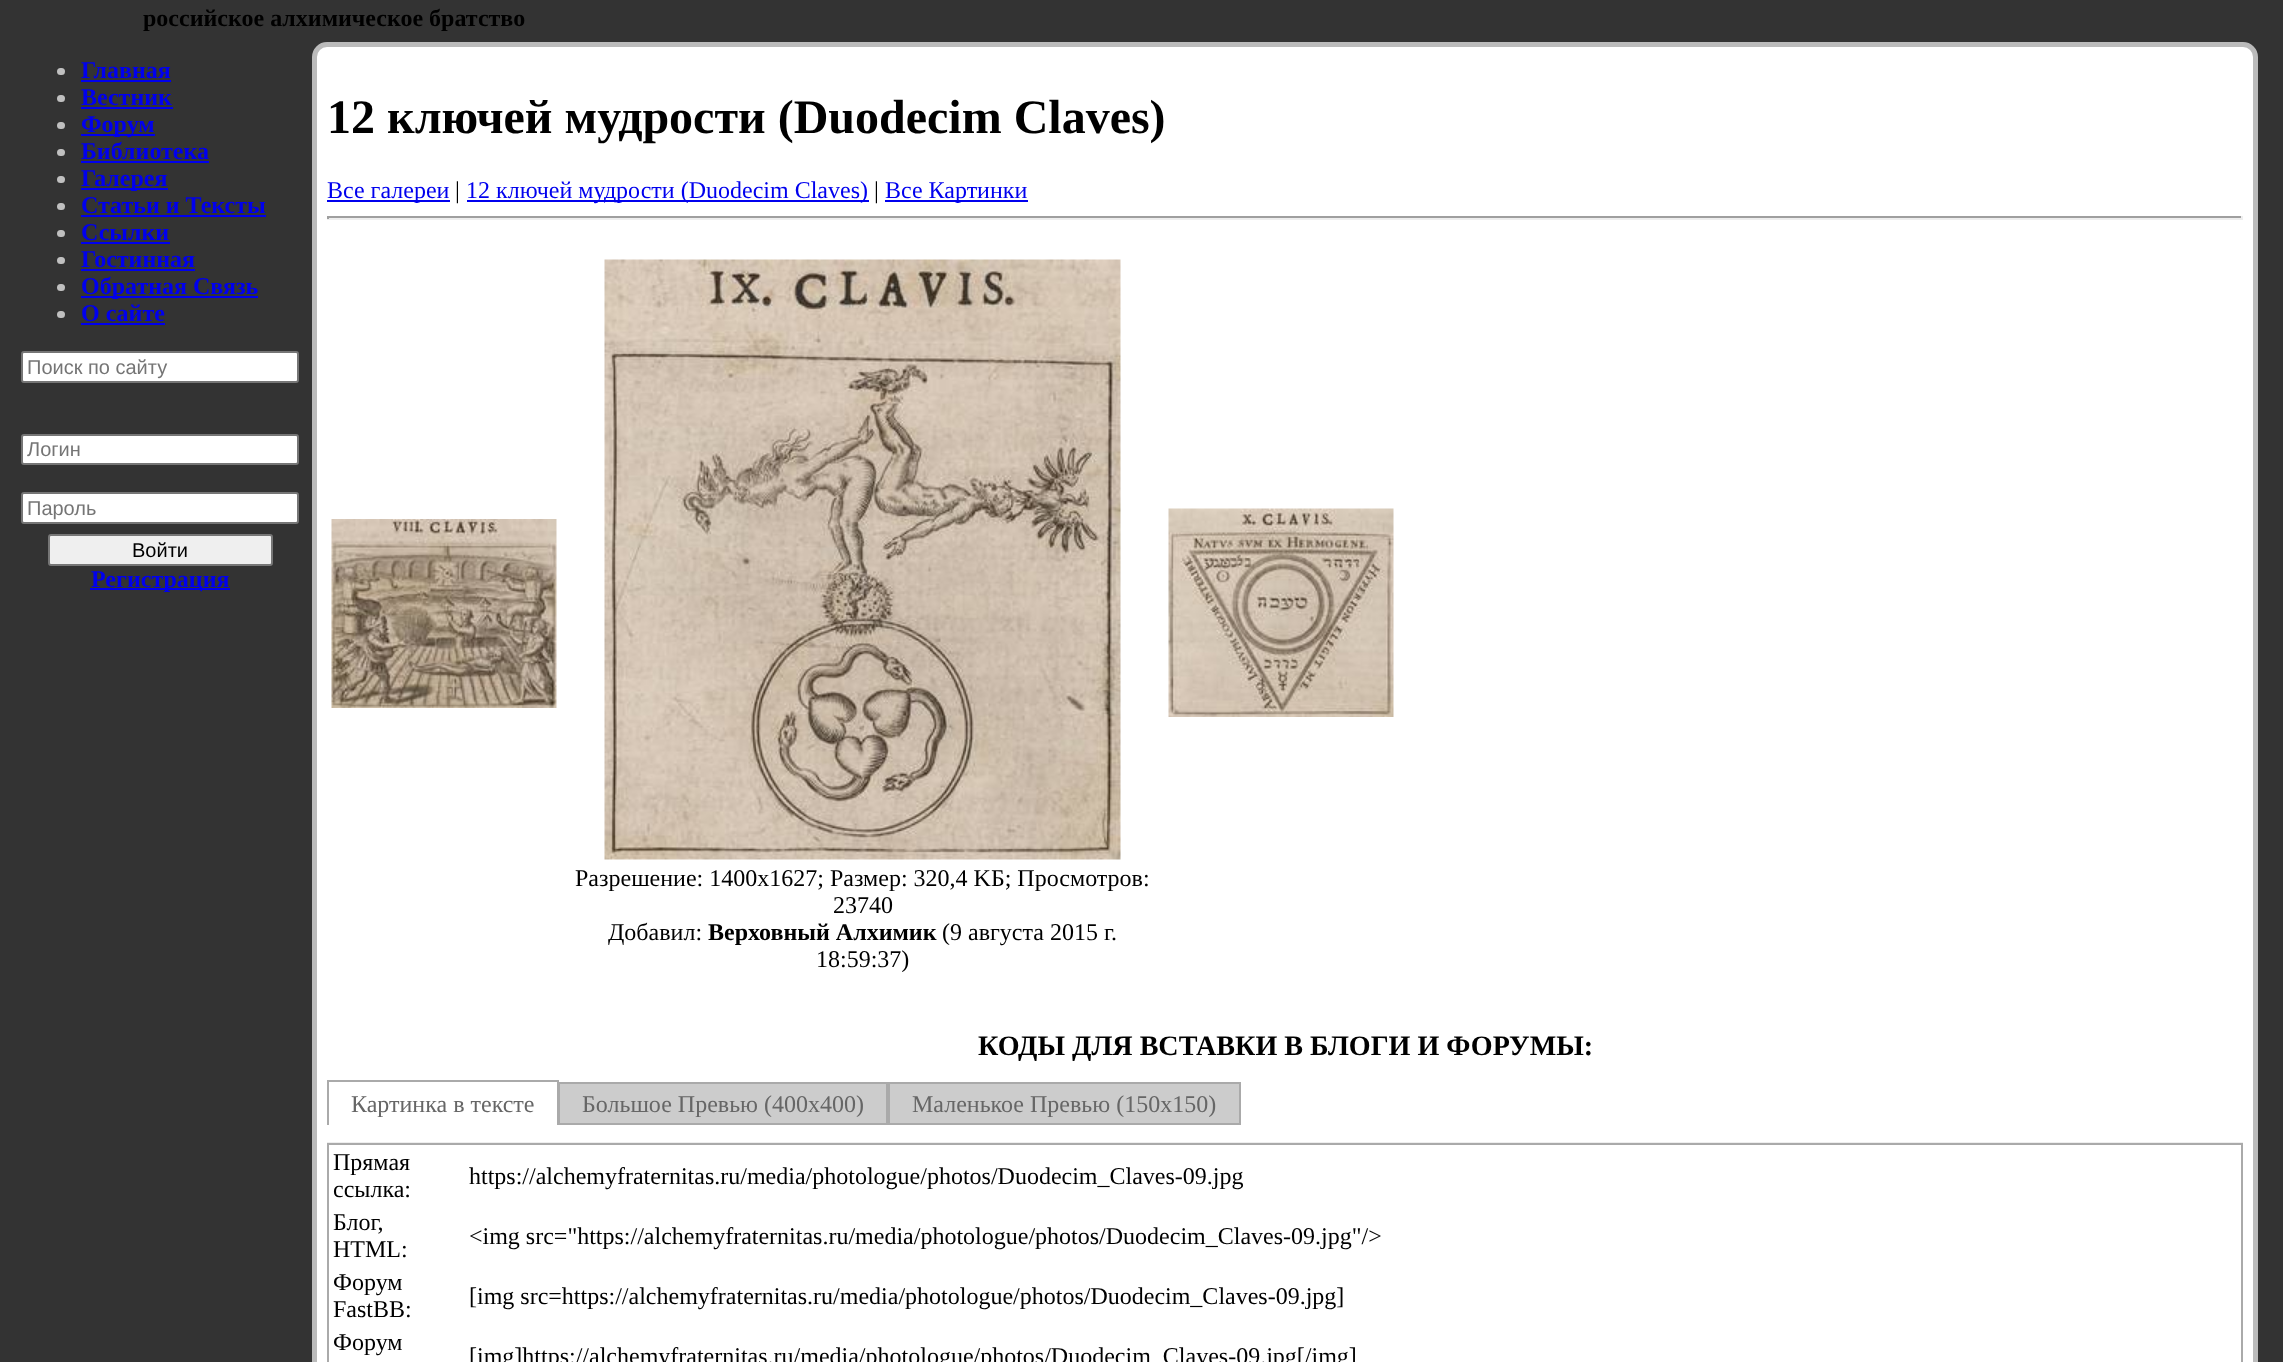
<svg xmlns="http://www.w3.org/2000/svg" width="2283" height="1362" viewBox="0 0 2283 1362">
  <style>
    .t1 { font: bold 24px Liberation Serif; fill: #000; }
    .t2 { font: bold 24px Liberation Serif; fill: #00e; }
    .t3 { font: 20px Liberation Sans; fill: #757575; }
    .t4 { font: 20px Liberation Sans; fill: #000; }
    .t5 { font: bold 48px Liberation Serif; fill: #000; }
    .t6 { font: 24px Liberation Serif; fill: #00e; }
    .t7 { font: 24px Liberation Serif; fill: #000; }
    .t8 { font: bold 28.1px Liberation Serif; fill: #000; }
    .t9 { font: 24px Liberation Serif; fill: #666; }
  </style>
  <rect width="100%" height="100%" fill="#333"/>
  <text x="143" y="26" class="t1">российское алхимическое братство</text>
  <rect x="57" y="68" width="8" height="7" rx="3.5" fill="#c0c0c0"/>
  <text x="81" y="78" class="t2">Главная</text>
  <rect x="81" y="80" width="90" height="2" fill="#00e"/>
  <rect x="57" y="95" width="8" height="7" rx="3.5" fill="#c0c0c0"/>
  <text x="81" y="105" class="t2">Вестник</text>
  <rect x="81" y="107" width="92" height="2" fill="#00e"/>
  <rect x="57" y="122" width="8" height="7" rx="3.5" fill="#c0c0c0"/>
  <rect x="81" y="134" width="74" height="2" fill="#00e"/>
  <text x="81" y="132" class="t2">Форум</text>
  <rect x="57" y="149" width="8" height="7" rx="3.5" fill="#c0c0c0"/>
  <text x="81" y="159" class="t2">Библиотека</text>
  <rect x="81" y="161" width="128" height="2" fill="#00e"/>
  <rect x="57" y="176" width="8" height="7" rx="3.5" fill="#c0c0c0"/>
  <rect x="81" y="188" width="87" height="2" fill="#00e"/>
  <text x="81" y="186" class="t2">Галерея</text>
  <rect x="57" y="203" width="8" height="7" rx="3.5" fill="#c0c0c0"/>
  <text x="81" y="213" class="t2">Статьи и Тексты</text>
  <rect x="81" y="215" width="185" height="2" fill="#00e"/>
  <rect x="57" y="230" width="8" height="7" rx="3.5" fill="#c0c0c0"/>
  <text x="81" y="240" class="t2">Ссылки</text>
  <rect x="81" y="242" width="89" height="2" fill="#00e"/>
  <rect x="57" y="257" width="8" height="7" rx="3.5" fill="#c0c0c0"/>
  <text x="81" y="267" class="t2">Гостинная</text>
  <rect x="81" y="269" width="114" height="2" fill="#00e"/>
  <rect x="57" y="284" width="8" height="7" rx="3.5" fill="#c0c0c0"/>
  <rect x="81" y="296" width="177" height="2" fill="#00e"/>
  <text x="81" y="294" class="t2">Обратная Связь</text>
  <rect x="57" y="311" width="8" height="7" rx="3.5" fill="#c0c0c0"/>
  <text x="81" y="321" class="t2">О сайте</text>
  <rect x="81" y="323" width="84" height="2" fill="#00e"/>
  <rect x="22" y="352" width="276" height="30" rx="2" fill="#fff" stroke="#767676" stroke-width="2"/>
  <text x="27" y="374" class="t3">Поиск по сайту</text>
  <rect x="22" y="435" width="276" height="29" rx="2" fill="#fff" stroke="#767676" stroke-width="2"/>
  <text x="27" y="456" class="t3">Логин</text>
  <rect x="22" y="493" width="276" height="30" rx="2" fill="#fff" stroke="#767676" stroke-width="2"/>
  <text x="27" y="515" class="t3">Пароль</text>
  <rect x="49" y="535" width="223" height="30" rx="2" fill="#efefef" stroke="#767676" stroke-width="2"/>
  <text x="132" y="557" class="t4">Войти</text>
  <rect x="90" y="588" width="140" height="2" fill="#00e"/>
  <text x="91" y="587" class="t2">Регистрация</text>
  <rect x="314.5" y="44.5" width="1941" height="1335" rx="12.5" fill="#fff" stroke="#bbb" stroke-width="5"/>
  <text x="327" y="133" class="t5">12 ключей мудрости (Duodecim Claves)</text>
  <rect x="327" y="200" width="123" height="2" fill="#00e"/>
  <text x="327" y="198" class="t6">Все галереи</text>
  <text x="455" y="198" class="t7">|</text>
  <rect x="467" y="200" width="402" height="2" fill="#00e"/>
  <text x="466" y="198" class="t6">12 ключей мудрости (Duodecim Claves)</text>
  <text x="874" y="198" class="t7">|</text>
  <rect x="885" y="200" width="143" height="2" fill="#00e"/>
  <text x="885" y="198" class="t6">Все Картинки</text>
  <rect x="327" y="216" width="1916" height="2" fill="#9f9f9f"/>
  <rect x="2241" y="216" width="2" height="3" fill="#eee"/>
  <rect x="327" y="218" width="1916" height="2" fill="#eee"/>
  <rect x="327" y="216" width="2" height="3" fill="#9f9f9f"/>
  <image x="331" y="519" width="226" height="189" href="images/1.png"/>
  <image x="1168" y="508" width="226" height="209" href="images/2.png"/>
  <image x="604" y="259" width="517" height="601" href="images/3.png"/>
  <text x="575" y="886" class="t7">Разрешение: 1400x1627; Размер: 320,4 KБ; Просмотров:</text>
  <text x="833" y="913" class="t7">23740</text>
  <text x="608" y="940" class="t7">Добавил:</text>
  <text x="708" y="940" class="t1">Верховный Алхимик</text>
  <text x="942" y="940" class="t7">(9 августа 2015 г.</text>
  <text x="816" y="967" class="t7">18:59:37)</text>
  <text x="978" y="1055" class="t8">КОДЫ ДЛЯ ВСТАВКИ В БЛОГИ И ФОРУМЫ:</text>
  <rect x="327" y="1142" width="1916" height="1" fill="#eee"/>
  <text x="351" y="1112" class="t9">Картинка в тексте</text>
  <rect x="327" y="1080" width="231" height="2" fill="#aaa"/>
  <rect x="557" y="1080" width="2" height="45" fill="#aaa"/>
  <rect x="327" y="1080" width="2" height="45" fill="#aaa"/>
  <rect x="559" y="1083" width="328" height="41" fill="#ccc" stroke="#aaa" stroke-width="2"/>
  <text x="582" y="1112" class="t9">Большое Превью (400x400)</text>
  <rect x="889" y="1083" width="351" height="41" fill="#ccc" stroke="#aaa" stroke-width="2"/>
  <text x="912" y="1112" class="t9">Маленькое Превью (150x150)</text>
  <rect x="328" y="1144" width="1914" height="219" fill="none" stroke="#aaa" stroke-width="2"/>
  <text x="333" y="1170" class="t7">Прямая</text>
  <text x="333" y="1197" class="t7">ссылка:</text>
  <text x="469" y="1184" class="t7">https://alchemyfraternitas.ru/media/photologue/photos/Duodecim_Claves-09.jpg</text>
  <text x="333" y="1230" class="t7">Блог,</text>
  <text x="333" y="1257" class="t7">HTML:</text>
  <text x="469" y="1244" class="t7">&lt;img src="https://alchemyfraternitas.ru/media/photologue/photos/Duodecim_Claves-09.jpg"/&gt;</text>
  <text x="333" y="1290" class="t7">Форум</text>
  <text x="333" y="1317" class="t7">FastBB:</text>
  <text x="469" y="1304" class="t7">[img src=https://alchemyfraternitas.ru/media/photologue/photos/Duodecim_Claves-09.jpg]</text>
  <text x="333" y="1350" class="t7">Форум</text>
  <text x="469" y="1364" class="t7">[img]https://alchemyfraternitas.ru/media/photologue/photos/Duodecim_Claves-09.jpg[/img]</text>
</svg>
